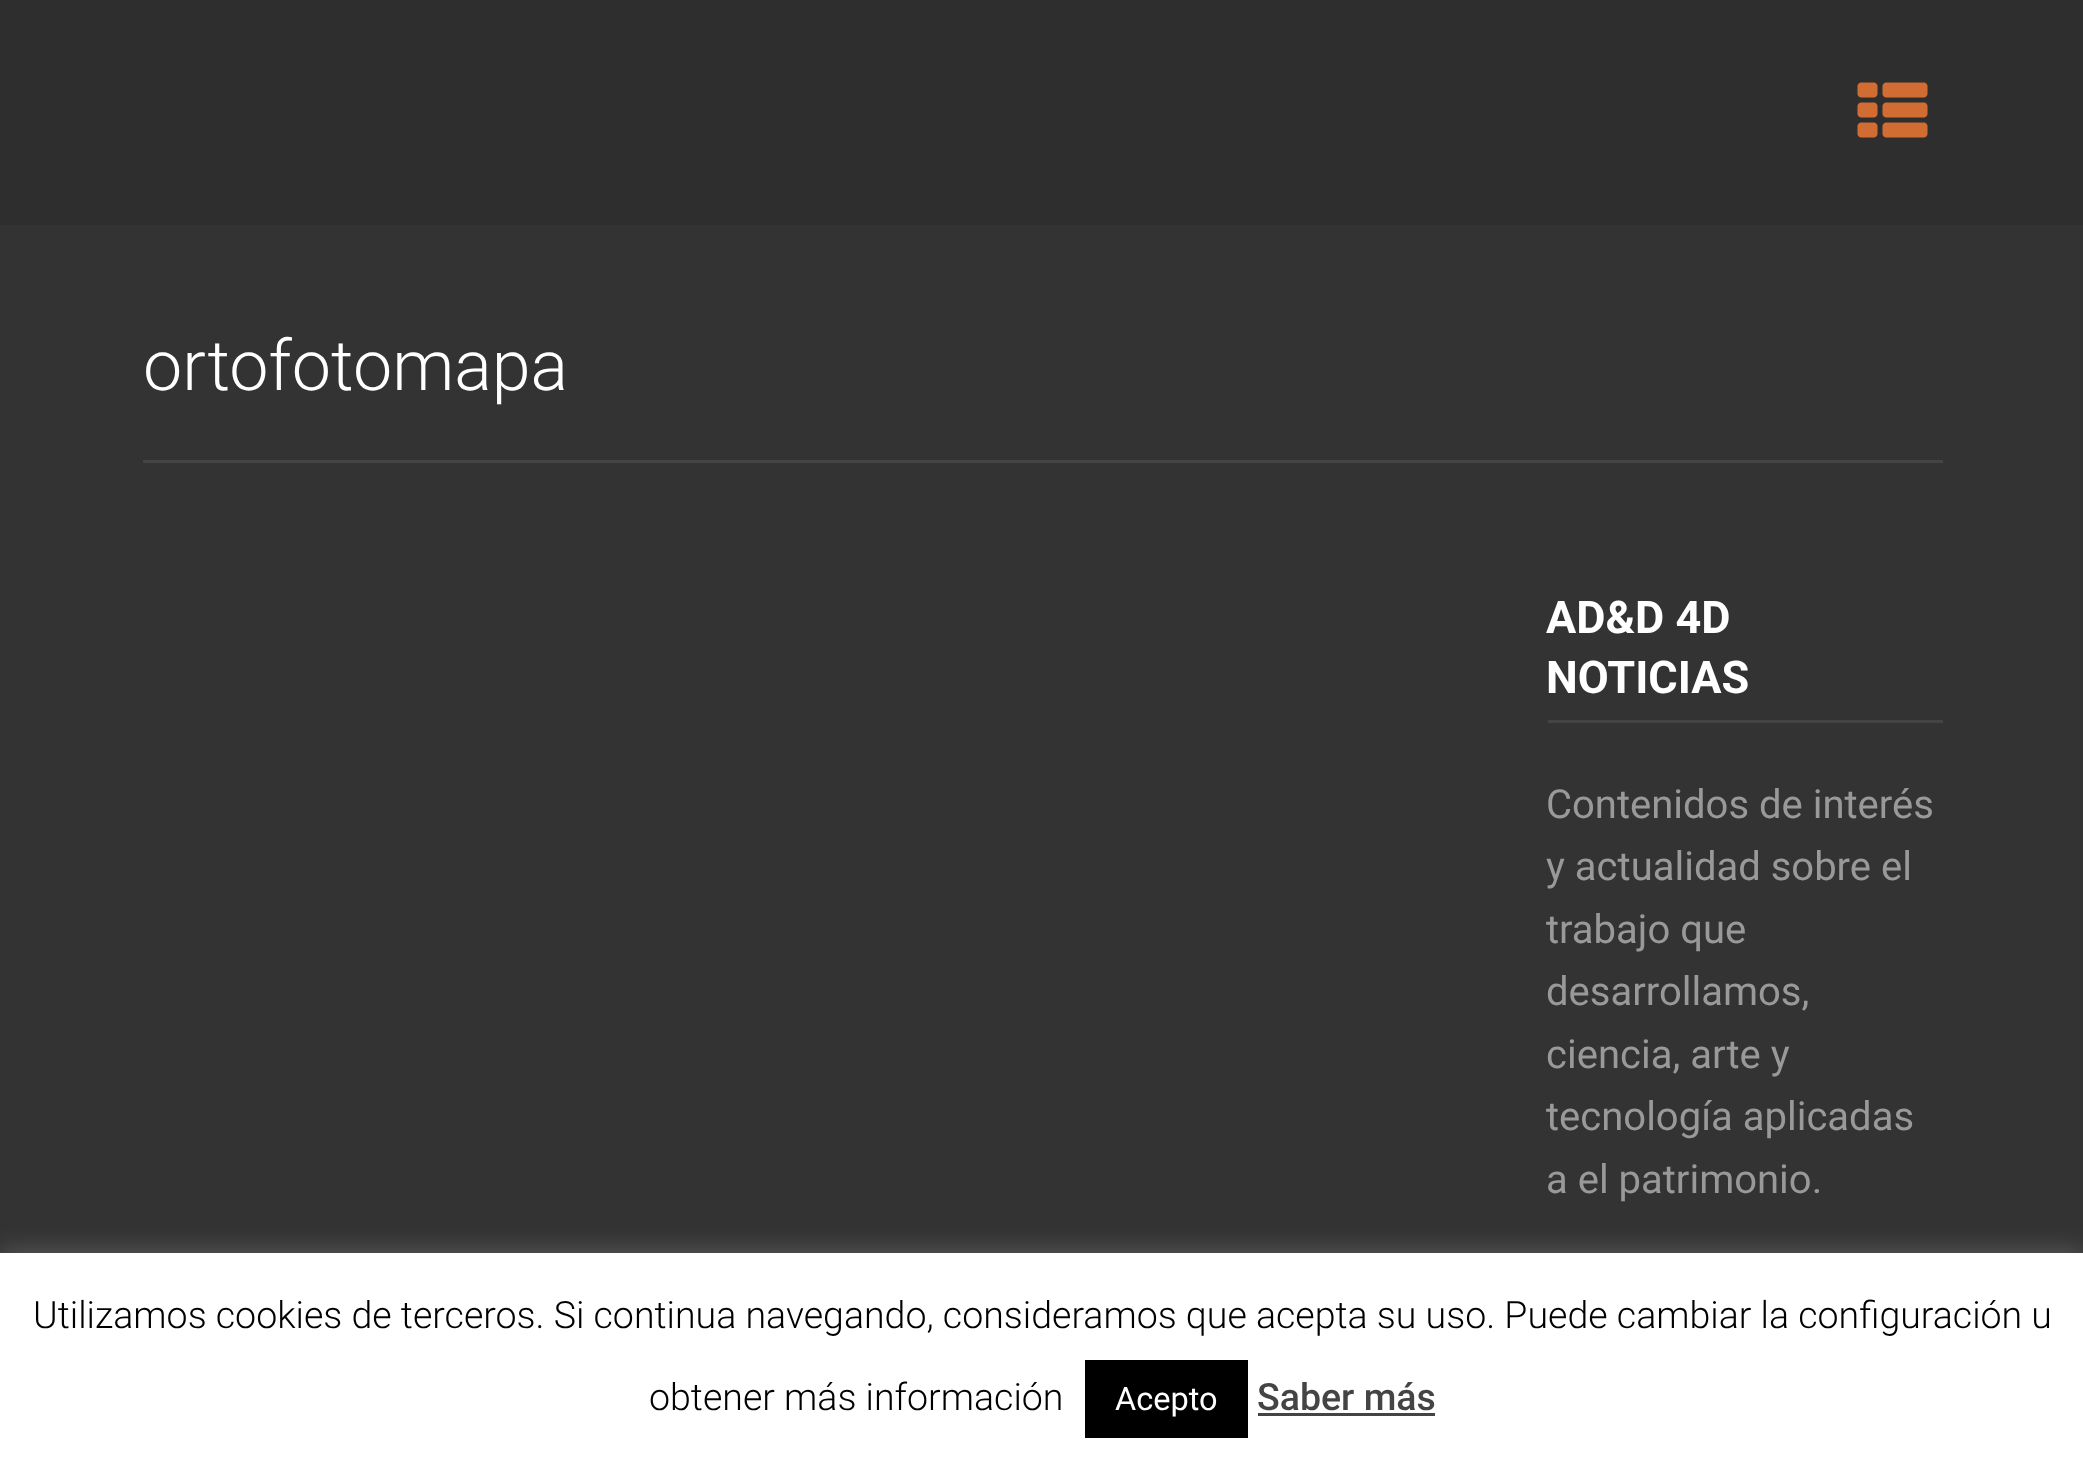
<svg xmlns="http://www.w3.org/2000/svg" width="2083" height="1466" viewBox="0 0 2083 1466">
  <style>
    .t1 { font: 300 70px Roboto; fill: #fff; }
    .t2 { font: bold 45px Roboto; fill: #fff; }
    .t3 { font: 40px Roboto; fill: #999; }
    .t4 { font: 300 37.5px Roboto; fill: #000; }
    .t5 { font: 32.5px Roboto; fill: #fff; }
    .t6 { font: 500 37.5px Roboto; fill: #444; }
  </style>
  <rect width="100%" height="100%" fill="#333"/>
  <rect x="0" y="0" width="2083" height="225" fill="#2e2e2e"/>
  <image x="1857" y="82" width="71" height="56" href="images/1.png"/>
  <rect x="143" y="460" width="1800" height="3" fill="#444"/>
  <text x="143" y="390" class="t1">ortofotomapa</text>
  <rect x="1548" y="720" width="395" height="3" fill="#444"/>
  <text x="1546" y="633" class="t2">AD&amp;D 4D</text>
  <text x="1546" y="693" class="t2">NOTICIAS</text>
  <text x="1546" y="818" class="t3">Contenidos de interés</text>
  <text x="1546" y="880" class="t3">y actualidad sobre el</text>
  <text x="1546" y="943" class="t3">trabajo que</text>
  <text x="1546" y="1005" class="t3">desarrollamos,</text>
  <text x="1546" y="1068" class="t3">ciencia, arte y</text>
  <text x="1546" y="1130" class="t3">tecnología aplicadas</text>
  <text x="1546" y="1193" class="t3">a el patrimonio.</text>
  <rect x="0" y="1250" width="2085" height="215" fill="#acabab4d" filter="blur(12.5px)"/>
  <rect x="0" y="1253" width="2083" height="213" fill="#fff"/>
  <text x="33" y="1328" class="t4">Utilizamos cookies de terceros. Si continua navegando, consideramos que acepta su uso. Puede cambiar la configuración u</text>
  <text x="649" y="1410" class="t4">obtener más información</text>
  <rect x="1085" y="1360" width="163" height="78" fill="#000"/>
  <text x="1115" y="1410" class="t5">Acepto</text>
  <text x="1257" y="1410" class="t6">Saber más</text>
  <rect x="1258" y="1413" width="177" height="3" fill="#444"/>
</svg>
